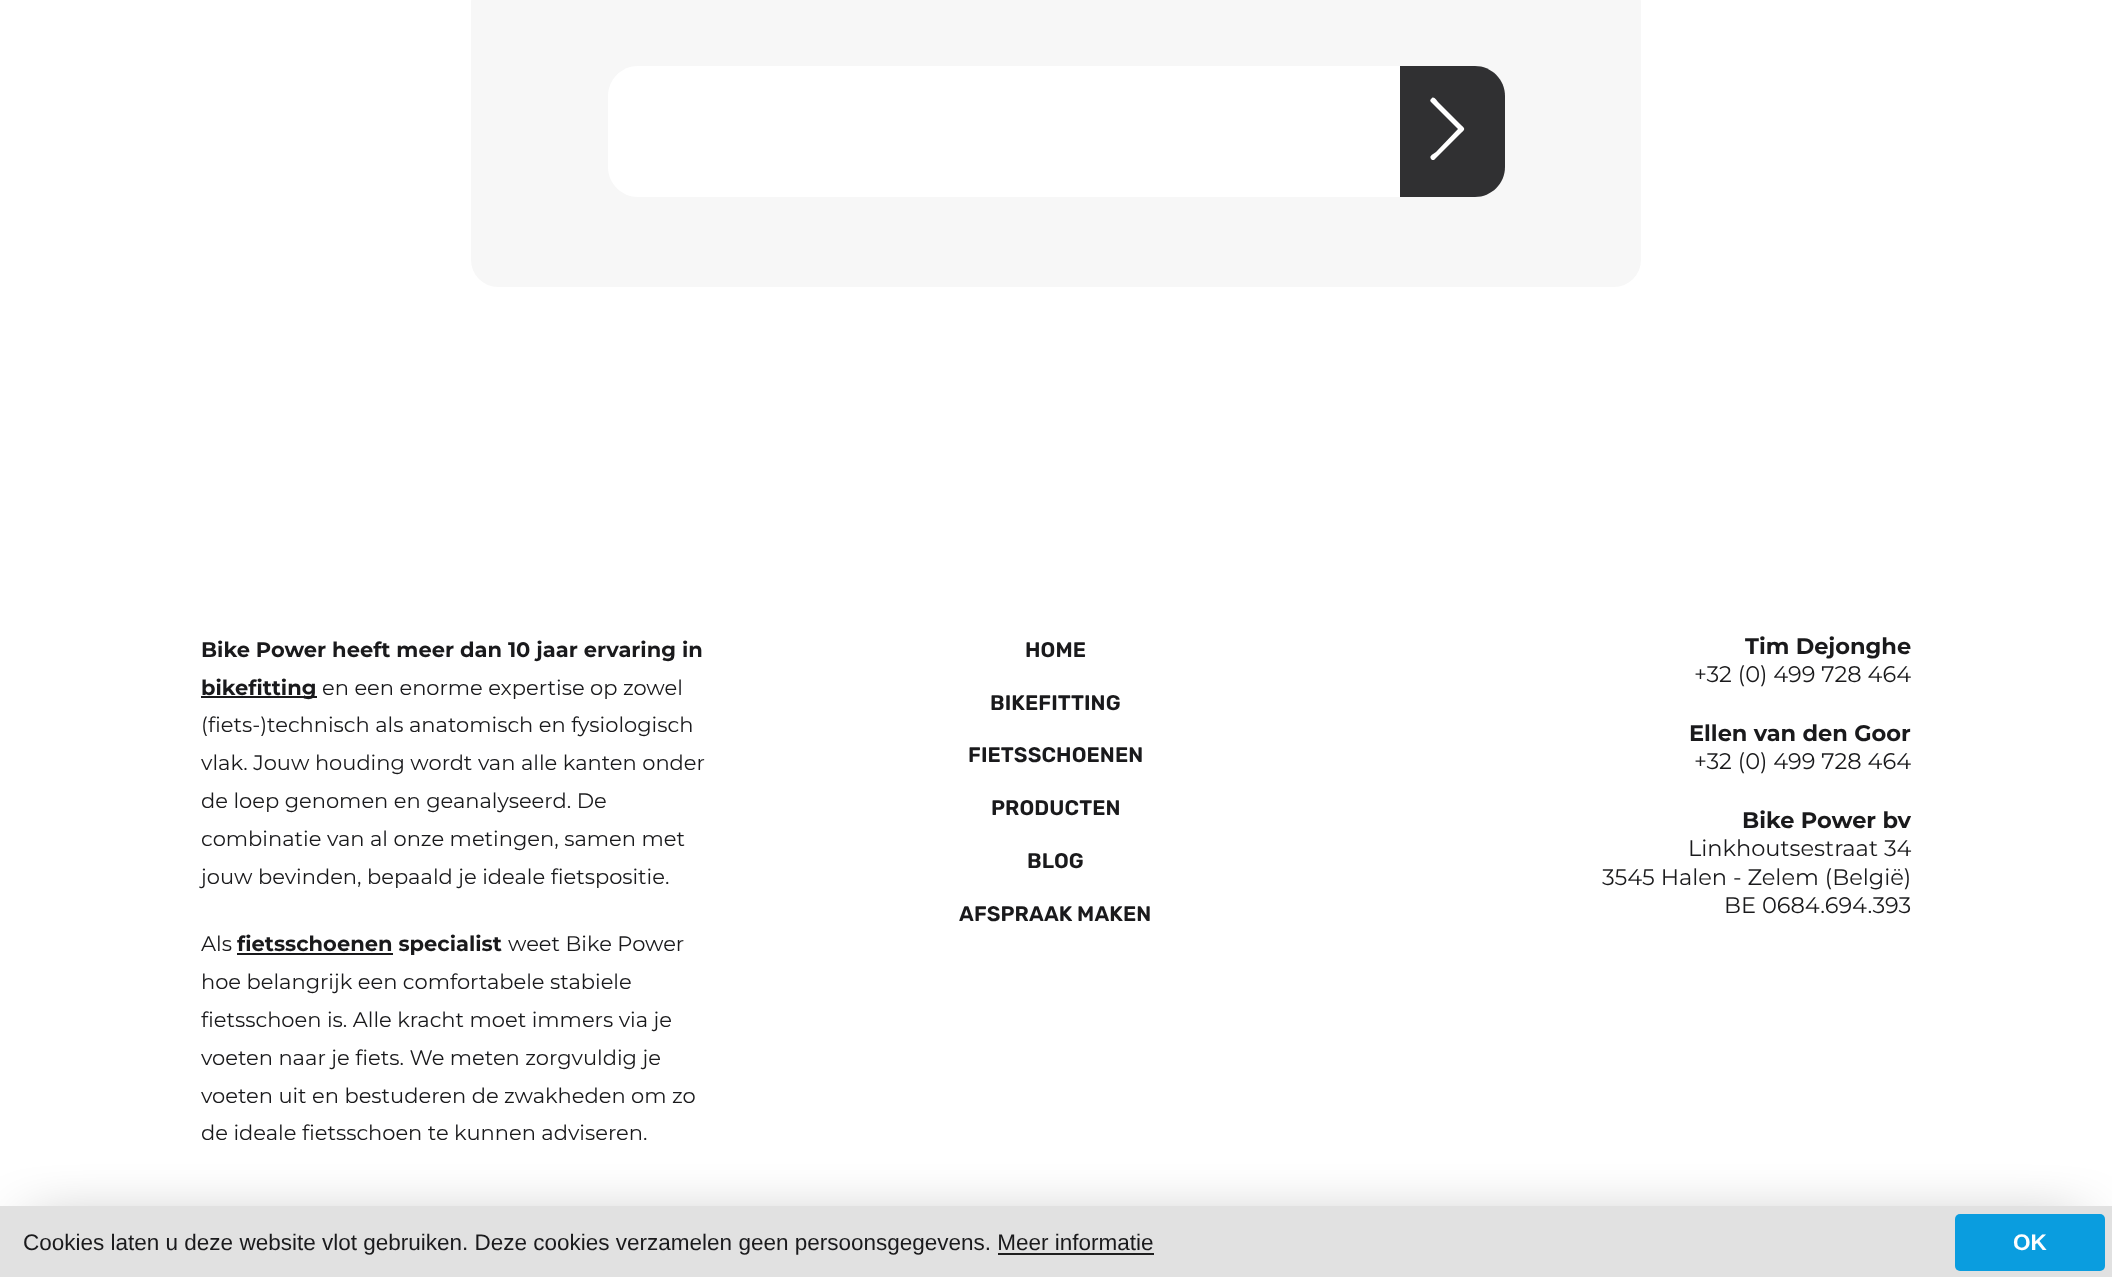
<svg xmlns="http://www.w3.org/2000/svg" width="2112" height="1277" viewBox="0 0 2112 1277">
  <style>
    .t1 { font: bold 21px Montserrat; fill: #1a1a1c; }
    .t2 { font: 21px Montserrat; fill: #1a1a1c; }
    .t3 { font: 600 21px Rubik; letter-spacing: 0.1px; fill: #1a1a1c; }
    .t4 { font: bold 22.5px Montserrat; fill: #1a1a1c; }
    .t5 { font: 22.5px Montserrat; fill: #1a1a1c; }
    .t6 { font: 22.5px Liberation Sans; fill: #1a1a1c; }
    .t7 { font: bold 22.5px Liberation Sans; fill: #fefefe; }
  </style>
  <rect width="100%" height="100%" fill="#fff"/>
  <rect x="471" y="-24" width="1170" height="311" rx="27" fill="#f7f7f7"/>
  <path d="M638 66H1400V197H638C621.5 197 608 183.5 608 167V96C608 79.5 621.5 66 638 66Z" fill="#fff"/>
  <path d="M1400 66H1475C1491.5 66 1505 79.5 1505 96V167C1505 183.5 1491.5 197 1475 197H1400Z" fill="#303032"/>
  <path d="M1432 98C1434 96 1437 101 1439 103L1459 123C1466 130 1466 128 1459 135L1434 160H1432C1428 156 1432 155 1436 152L1458 129L1431 102C1430 101 1430 100 1431 99Z" fill="#fff"/>
  <text x="201" y="657" class="t1">Bike Power heeft meer dan 10 jaar ervaring in</text>
  <rect x="201" y="696" width="116" height="2" fill="#1a1a1c"/>
  <text x="201" y="695" class="t1">bikefitting</text>
  <text x="322" y="695" class="t2">en een enorme expertise op zowel</text>
  <text x="201" y="732" class="t2">(fiets-)technisch als anatomisch en fysiologisch</text>
  <text x="201" y="770" class="t2">vlak. Jouw houding wordt van alle kanten onder</text>
  <text x="201" y="808" class="t2">de loep genomen en geanalyseerd. De</text>
  <text x="201" y="846" class="t2">combinatie van al onze metingen, samen met</text>
  <text x="201" y="884" class="t2">jouw bevinden, bepaald je ideale fietspositie.</text>
  <text x="201" y="951" class="t2">Als</text>
  <rect x="237" y="953" width="156" height="2" fill="#1a1a1c"/>
  <text x="237" y="951" class="t1">fietsschoenen specialist</text>
  <text x="508" y="951" class="t2">weet Bike Power</text>
  <text x="201" y="989" class="t2">hoe belangrijk een comfortabele stabiele</text>
  <text x="201" y="1027" class="t2">fietsschoen is. Alle kracht moet immers via je</text>
  <text x="201" y="1065" class="t2">voeten naar je fiets. We meten zorgvuldig je</text>
  <text x="201" y="1103" class="t2">voeten uit en bestuderen de zwakheden om zo</text>
  <text x="201" y="1140" class="t2">de ideale fietsschoen te kunnen adviseren.</text>
  <text x="1025" y="657" class="t3">HOME</text>
  <text x="990" y="710" class="t3">BIKEFITTING</text>
  <text x="968" y="762" class="t3">FIETSSCHOENEN</text>
  <text x="991" y="815" class="t3">PRODUCTEN</text>
  <text x="1027" y="868" class="t3">BLOG</text>
  <text x="959" y="921" class="t3">AFSPRAAK MAKEN</text>
  <text x="1745" y="654" class="t4">Tim Dejonghe</text>
  <text x="1694" y="682" class="t5">+32 (0) 499 728 464</text>
  <text x="1689" y="741" class="t4">Ellen van den Goor</text>
  <text x="1694" y="769" class="t5">+32 (0) 499 728 464</text>
  <text x="1742" y="828" class="t4">Bike Power bv</text>
  <text x="1688" y="856" class="t5">Linkhoutsestraat 34</text>
  <text x="1602" y="885" class="t5">3545 Halen - Zelem (België)</text>
  <text x="1724" y="913" class="t5">BE 0684.694.393</text>
  <rect x="30" y="1236" width="2052" height="12" fill="#000" filter="blur(30px)"/>
  <rect x="0" y="1206" width="2112" height="71" fill="#e1e1e1"/>
  <text x="23" y="1250" class="t6">Cookies laten u deze website vlot gebruiken. Deze cookies verzamelen geen persoonsgegevens. Meer informatie</text>
  <rect x="998" y="1253" width="156" height="2" fill="#1f1f1f"/>
  <rect x="1955" y="1214" width="150" height="57" rx="5" fill="#0a9ddf"/>
  <text x="2013" y="1250" class="t7">OK</text>
</svg>
